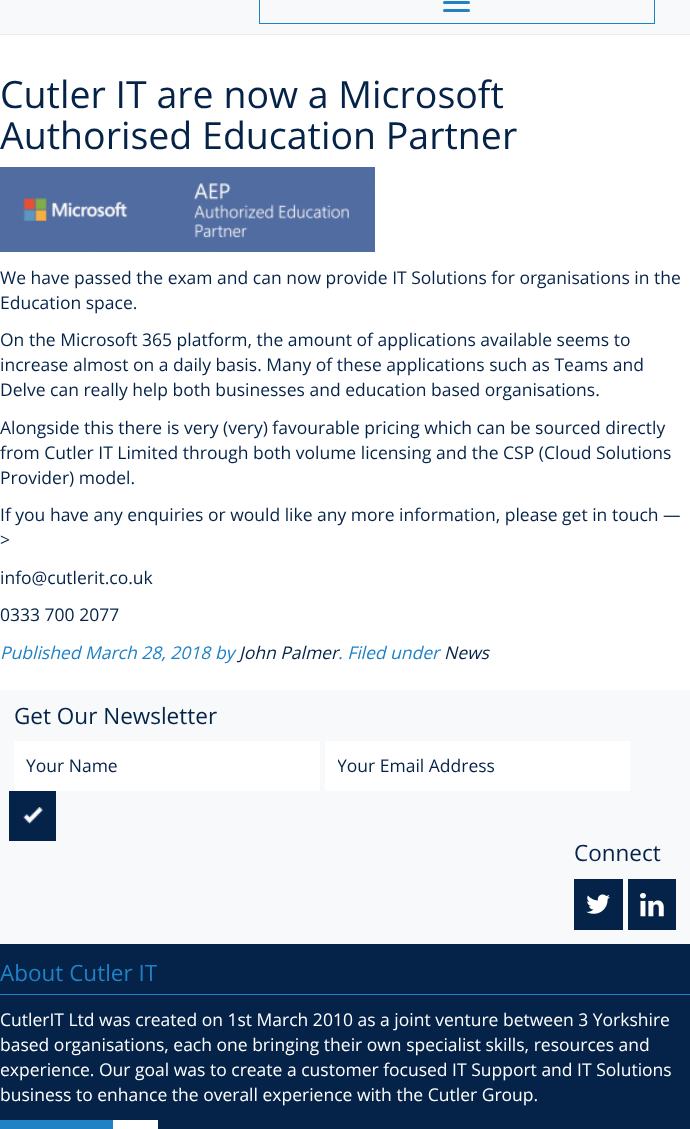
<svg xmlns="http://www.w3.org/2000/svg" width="690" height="1129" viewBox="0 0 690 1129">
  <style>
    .t1 { font: 37.5px Open Sans; fill: #052348; }
    .t2 { font: 17.5px Open Sans; fill: #052348; }
    .t3 { font: italic 17.5px Open Sans; fill: #1f82c5; }
    .t4 { font: italic 17.5px Open Sans; fill: #052348; }
    .t5 { font: 22.5px Open Sans; fill: #052348; }
    .t6 { font: 22.5px Open Sans; fill: #1f82c5; }
    .t7 { font: 17.5px Open Sans; fill: #fff; }
  </style>
  <defs>
    <clipPath id="clip1"><rect x="338" y="754" width="280" height="24"/></clipPath>
  </defs>
  <rect width="100%" height="100%" fill="#fff"/>
  <rect x="0" y="0" width="690" height="34" fill="#f7f9fa"/>
  <rect x="0" y="34" width="690" height="1" fill="#e8edef"/>
  <rect x="259.5" y="-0.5" width="395" height="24" fill="none" stroke="#1f82c5"/>
  <rect x="443" y="1" width="27" height="3" rx="1.5" fill="#1f82c5"/>
  <rect x="443" y="9" width="27" height="3" rx="1.5" fill="#1f82c5"/>
  <text x="0" y="108" class="t1">Cutler IT are now a Microsoft</text>
  <text x="0" y="149" class="t1">Authorised Education Partner</text>
  <image x="0" y="167" width="375" height="85" href="images/1.png"/>
  <text x="0" y="284" class="t2">We have passed the exam and can now provide IT Solutions for organisations in the</text>
  <text x="0" y="309" class="t2">Education space.</text>
  <text x="0" y="346" class="t2">On the Microsoft 365 platform, the amount of applications available seems to</text>
  <text x="0" y="371" class="t2">increase almost on a daily basis. Many of these applications such as Teams and</text>
  <text x="0" y="396" class="t2">Delve can really help both businesses and education based organisations.</text>
  <text x="0" y="434" class="t2">Alongside this there is very (very) favourable pricing which can be sourced directly</text>
  <text x="0" y="459" class="t2">from Cutler IT Limited through both volume licensing and the CSP (Cloud Solutions</text>
  <text x="0" y="484" class="t2">Provider) model.</text>
  <text x="0" y="521" class="t2">If you have any enquiries or would like any more information, please get in touch —</text>
  <text x="0" y="546" class="t2">&gt;</text>
  <text x="0" y="584" class="t2">info@cutlerit.co.uk</text>
  <text x="0" y="621" class="t2">0333 700 2077</text>
  <text x="0" y="659" class="t3">Published March 28, 2018 by</text>
  <text x="239" y="659" class="t4">John Palmer</text>
  <text x="338" y="659" class="t3">. Filed under</text>
  <text x="444" y="659" class="t4">News</text>
  <rect x="0" y="944" width="690" height="185" fill="#052348"/>
  <rect x="0" y="690" width="690" height="254" fill="#f7f9fa"/>
  <text x="14" y="724" class="t5">Get Our Newsletter</text>
  <rect x="14" y="741" width="306" height="50" fill="#fff"/>
  <text x="26" y="772" class="t2">Your Name</text>
  <rect x="325" y="741" width="305" height="50" fill="#fff"/>
  <g clip-path="url(#clip1)">
    <text x="337" y="772" class="t2">Your Email Address</text>
  </g>
  <rect x="9" y="791" width="47" height="50" fill="#052348"/>
  <image x="23" y="807" width="20" height="17" href="images/2.png"/>
  <text x="574" y="861" class="t5">Connect</text>
  <rect x="574" y="879" width="49" height="51" fill="#052348"/>
  <image x="586" y="894" width="24" height="20" href="images/3.png"/>
  <rect x="628" y="879" width="48" height="51" fill="#052348"/>
  <image x="640" y="893" width="24" height="24" href="images/4.png"/>
  <rect x="0" y="994" width="690" height="1" fill="#1f82c5"/>
  <text x="0" y="981" class="t6">About Cutler IT</text>
  <text x="0" y="1026" class="t7">CutlerIT Ltd was created on 1st March 2010 as a joint venture between 3 Yorkshire</text>
  <text x="0" y="1051" class="t7">based organisations, each one bringing their own specialist skills, resources and</text>
  <text x="0" y="1076" class="t7">experience. Our goal was to create a customer focused IT Support and IT Solutions</text>
  <text x="0" y="1101" class="t7">business to enhance the overall experience with the Cutler Group.</text>
  <rect x="0" y="1120" width="113" height="9" fill="#1f82c5"/>
  <rect x="113" y="1120" width="45" height="9" fill="#fff"/>
</svg>
